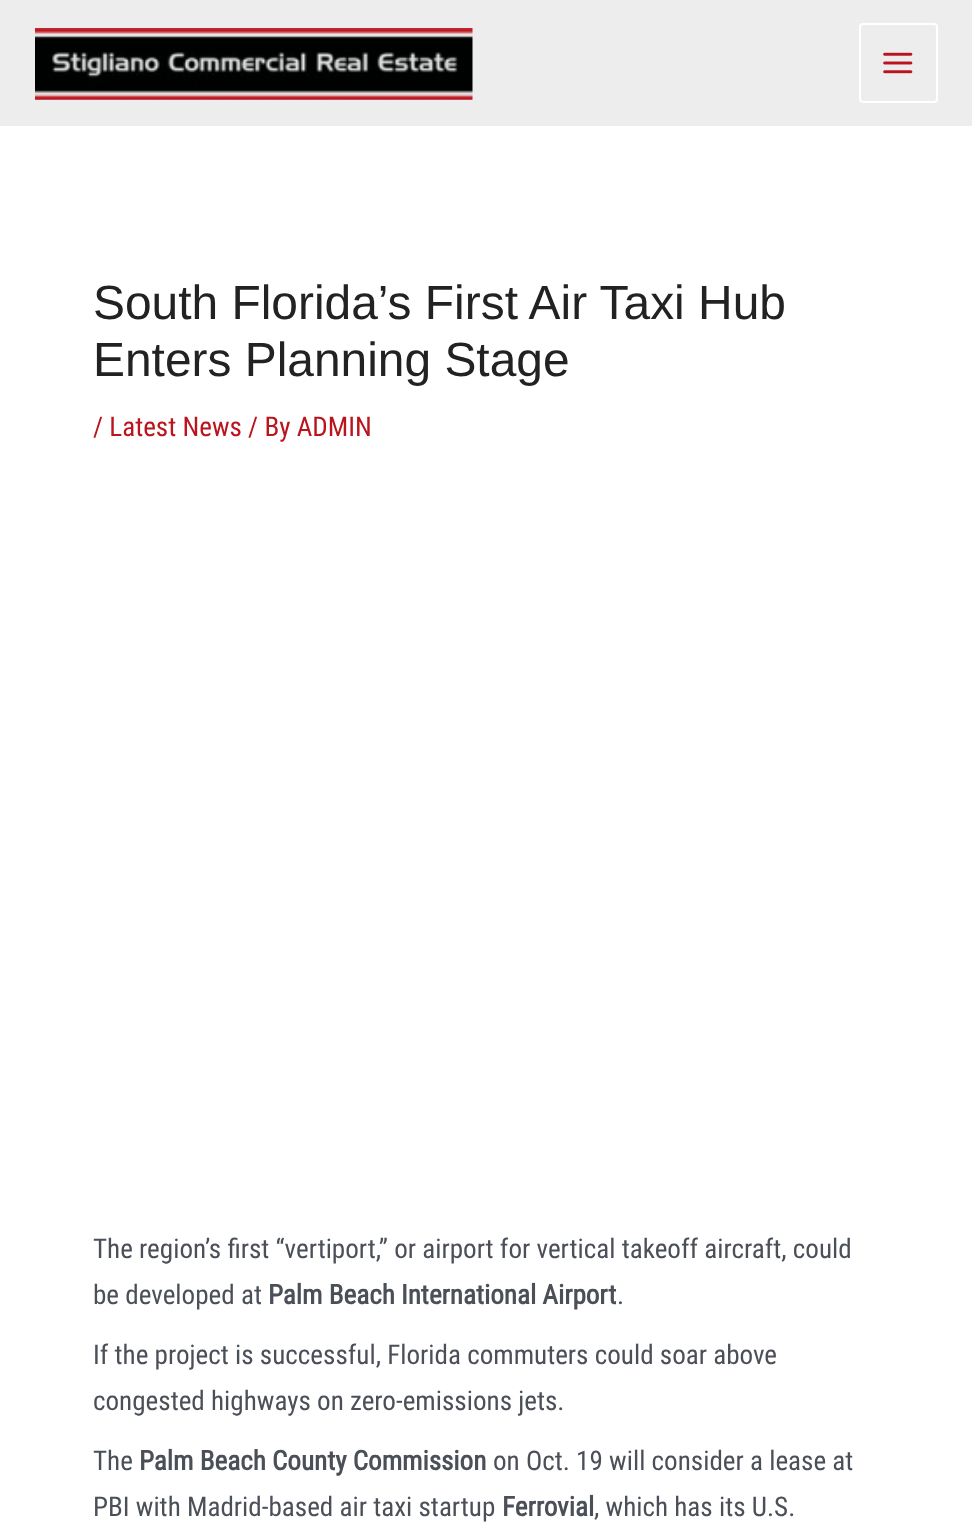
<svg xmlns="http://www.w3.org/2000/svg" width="972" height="1525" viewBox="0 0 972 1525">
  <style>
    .t1 { font: 47.9px Liberation Sans; fill: #222; }
    .t2 { font: 27.1px Roboto Condensed; fill: #ba141d; }
    .t3 { font: 27.1px Roboto Condensed; fill: #4b4f58; }
    .t4 { font: bold 27.1px Roboto Condensed; fill: #4b4f58; }
  </style>
  <rect width="100%" height="100%" fill="#fff"/>
  <rect x="0" y="0" width="972" height="126" fill="#ededed"/>
  <image x="35" y="28" width="438" height="72" href="images/1.png"/>
  <rect x="860" y="24" width="77" height="78" rx="3" fill="none" stroke="#fff" stroke-width="2"/>
  <image x="883" y="52" width="30" height="22" href="images/2.png"/>
  <text x="93" y="319" class="t1">South Florida’s First Air Taxi Hub</text>
  <text x="93" y="376" class="t1">Enters Planning Stage</text>
  <text x="93" y="436" class="t2">/ Latest News / By ADMIN</text>
  <text x="93" y="1258" class="t3">The region’s first “vertiport,” or airport for vertical takeoff aircraft, could</text>
  <text x="93" y="1304" class="t3">be developed at</text>
  <text x="268" y="1304" class="t4">Palm Beach International Airport</text>
  <text x="617" y="1304" class="t3">.</text>
  <text x="93" y="1364" class="t3">If the project is successful, Florida commuters could soar above</text>
  <text x="93" y="1410" class="t3">congested highways on zero-emissions jets.</text>
  <text x="93" y="1470" class="t3">The</text>
  <text x="139" y="1470" class="t4">Palm Beach County Commission</text>
  <text x="493" y="1470" class="t3">on Oct. 19 will consider a lease at</text>
  <text x="93" y="1516" class="t3">PBI with Madrid-based air taxi startup</text>
  <text x="502" y="1516" class="t4">Ferrovial</text>
  <text x="594" y="1516" class="t3">, which has its U.S.</text>
</svg>
